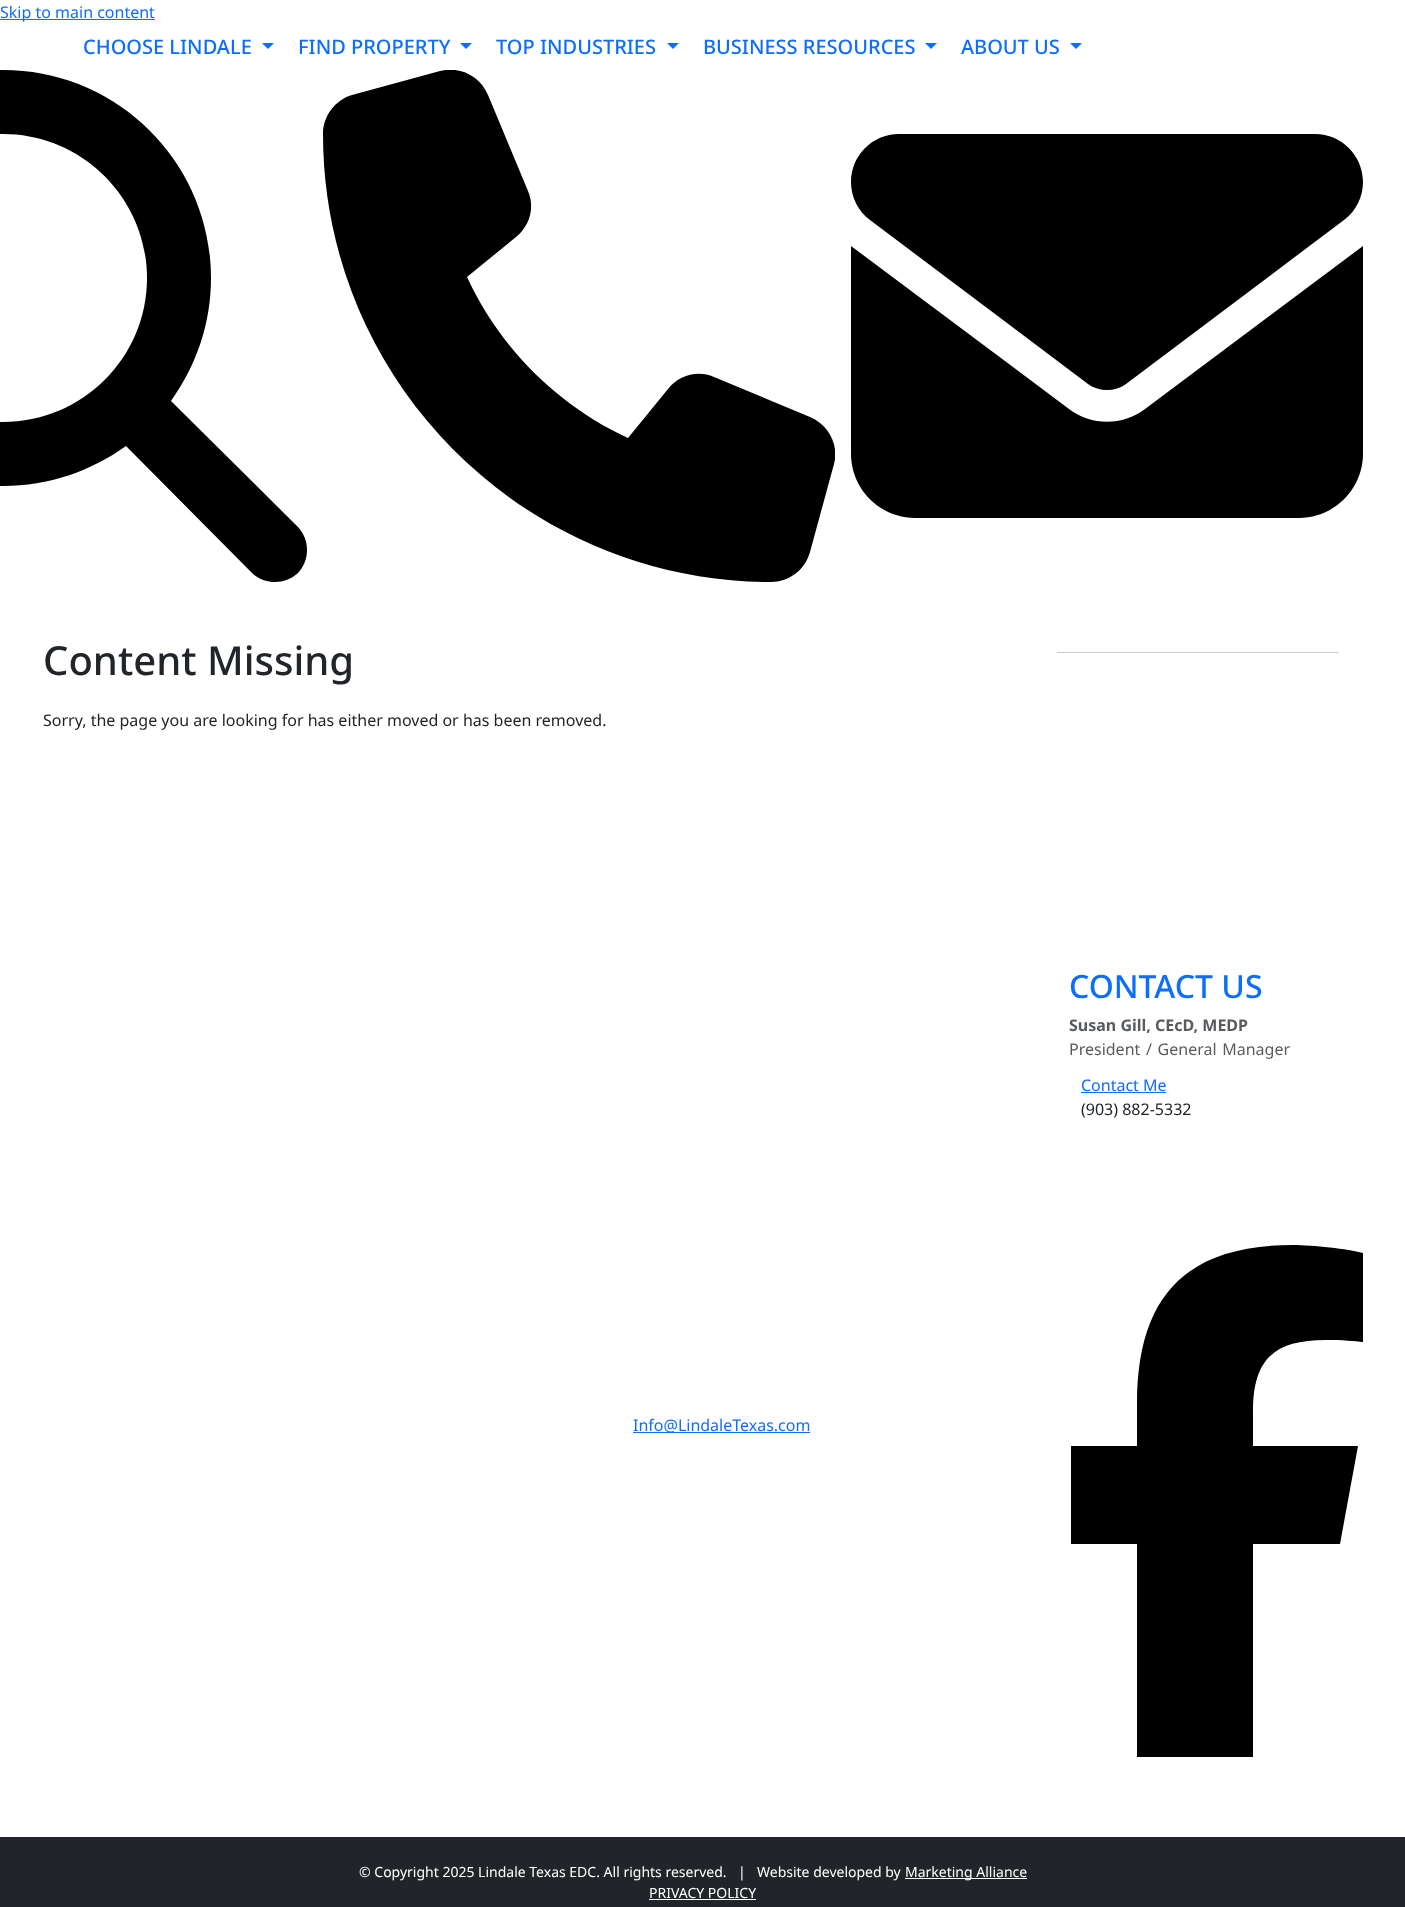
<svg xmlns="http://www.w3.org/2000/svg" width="1405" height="1907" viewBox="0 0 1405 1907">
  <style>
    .t1 { font: 16px Noto Sans; fill: #0d6efd; }
    .t2 { font: 500 20px Noto Sans; fill: #0d6efd; }
    .t3 { font: 500 40px Noto Sans; fill: #212529; }
    .t4 { font: 16px Noto Sans; fill: #212529; }
    .t5 { font: 500 32px Noto Sans; fill: #0d6efd; }
    .t6 { font: bold 16px Noto Sans; fill: #595c5f; }
    .t7 { font: 16px Noto Sans; fill: #595c5f; }
    .t8 { font: 14px Noto Sans; fill: #fff; }
  </style>
  <defs>
    <clipPath id="clip1"><rect x="323" y="70" width="512" height="512"/></clipPath>
  </defs>
  <rect width="100%" height="100%" fill="#fff"/>
  <rect x="0" y="19" width="155" height="1" fill="#0d6efd"/>
  <text x="0" y="18" class="t1">Skip to main content</text>
  <text x="83" y="54" class="t2">CHOOSE LINDALE</text>
  <path d="M262 43H274L268 49Z" fill="#0d6efd"/>
  <text x="298" y="54" class="t2">FIND PROPERTY</text>
  <path d="M460 43H472L466 49Z" fill="#0d6efd"/>
  <text x="496" y="54" class="t2">TOP INDUSTRIES</text>
  <path d="M667 43H679L673 49Z" fill="#0d6efd"/>
  <text x="703" y="54" class="t2">BUSINESS RESOURCES</text>
  <path d="M925 43H937L931 49Z" fill="#0d6efd"/>
  <text x="961" y="54" class="t2">ABOUT US</text>
  <path d="M1070 43H1082L1076 49Z" fill="#0d6efd"/>
  <path d="M211 278C211 324 196 366 171 401L298 527C310 540 310 560 298 573C285 585 265 585 252 573L126 446C91 471 49 486 3 486C-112 486-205 393-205 278C-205 163-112 70 3 70C118 70 211 163 211 278ZM3 422C82 422 147 358 147 278C147 198 82 134 3 134C-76 134-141 198-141 278C-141 358-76 422 3 422Z" fill="#000"/>
  <g clip-path="url(#clip1)">
    <path d="M488 95C480 76 460 66 440 71L352 95C335 100 323 116 323 134C323 381 524 582 771 582C789 582 805 570 810 552L834 464C839 445 829 425 810 417L714 377C698 370 679 375 668 389L628 438C557 405 500 348 467 277L516 237C530 226 535 207 528 191Z" fill="#000"/>
  </g>
  <path d="M899 134C872 134 851 156 851 182C851 197 858 211 870 220L1088 384C1099 392 1115 392 1126 384L1344 220C1356 211 1363 197 1363 182C1363 156 1342 134 1315 134ZM851 246V454C851 489 880 518 915 518H1299C1334 518 1363 489 1363 454V246L1145 409C1123 426 1091 426 1069 409Z" fill="#000"/>
  <text x="43" y="675" class="t3">Content Missing</text>
  <text x="43" y="726" class="t4">Sorry, the page you are looking for has either moved or has been removed.</text>
  <rect x="1057" y="652" width="282" height="1" fill="#c8c9ca"/>
  <text x="1069" y="998" class="t5">CONTACT US</text>
  <text x="1069" y="1031" class="t6">Susan Gill, CEcD, MEDP</text>
  <text x="1069" y="1055" word-spacing="1.5" class="t7">President / General Manager</text>
  <text x="1081" y="1091" class="t1">Contact Me</text>
  <rect x="1081" y="1092" width="85" height="1" fill="#0d6efd"/>
  <text x="1081" y="1115" class="t4">(903) 882-5332</text>
  <rect x="633" y="1432" width="177" height="1" fill="#0d6efd"/>
  <text x="633" y="1431" class="t1">Info@LindaleTexas.com</text>
  <path d="M1137 1544V1757H1253V1544H1340L1358 1446H1253V1412C1253 1360 1273 1340 1326 1340C1342 1340 1355 1341 1363 1342V1253C1348 1249 1313 1245 1293 1245C1186 1245 1137 1296 1137 1404V1446H1071V1544Z" fill="#000"/>
  <rect x="0" y="1837" width="1405" height="70" fill="#212529"/>
  <text x="359" y="1877" class="t8">© Copyright 2025 Lindale Texas EDC. All rights reserved.</text>
  <text x="738" y="1877" class="t8">|</text>
  <text x="757" y="1877" class="t8">Website developed by</text>
  <rect x="905" y="1878" width="122" height="1" fill="#fff"/>
  <text x="905" y="1877" class="t8">Marketing Alliance</text>
  <text x="649" y="1898" class="t8">PRIVACY POLICY</text>
  <rect x="649" y="1899" width="107" height="1" fill="#fff"/>
</svg>
